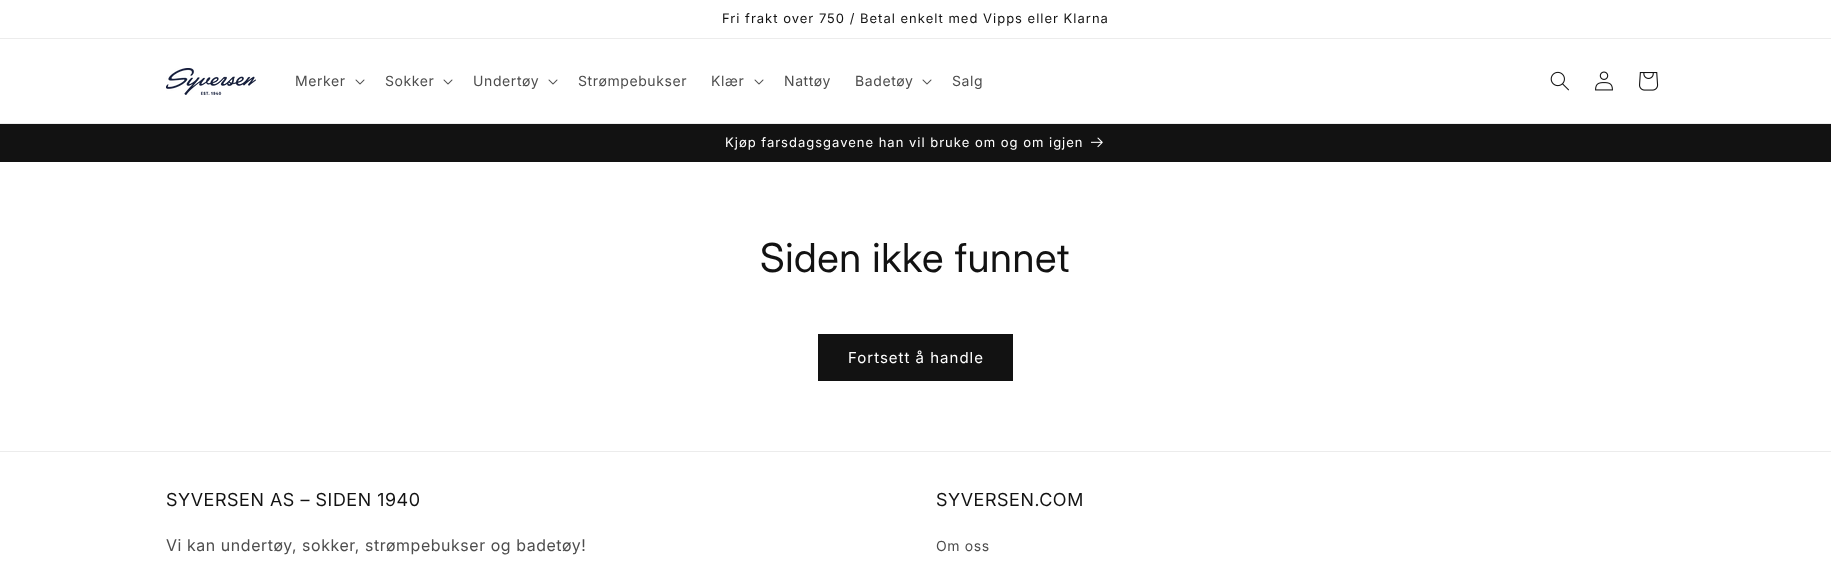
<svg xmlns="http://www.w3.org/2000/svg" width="1831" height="571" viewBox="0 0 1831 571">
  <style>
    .t1 { font: 13px Inter; letter-spacing: 1px; fill: #121212; }
    .t2 { font: 14px Inter; letter-spacing: 0.6px; fill: #4d4d4d; }
    .t3 { font: 13px Inter; letter-spacing: 1px; fill: #fff; }
    .t4 { font: 40px 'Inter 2'; letter-spacing: 0.6px; fill: #121212; }
    .t5 { font: 15px Inter; letter-spacing: 1px; fill: #fff; }
    .t6 { font: 18px 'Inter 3'; letter-spacing: 0.6px; fill: #121212; }
    .t7 { font: 16px 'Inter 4'; letter-spacing: 0.6px; fill: #4d4d4d; }
  </style>
  <rect width="100%" height="100%" fill="#fff"/>
  <rect x="0" y="38" width="1831" height="1" fill="#ececec"/>
  <text x="722" y="23" class="t1">Fri frakt over 750 / Betal enkelt med Vipps eller Klarna</text>
  <rect x="0" y="123" width="1831" height="1" fill="#ececec"/>
  <image x="166" y="68" width="90" height="27" href="images/1.png"/>
  <text x="295" y="86" class="t2">Merker</text>
  <image x="355" y="79" width="10" height="6" href="images/2.png"/>
  <text x="385" y="86" class="t2">Sokker</text>
  <image x="443" y="79" width="10" height="6" href="images/2.png"/>
  <text x="473" y="86" class="t2">Undertøy</text>
  <image x="548" y="79" width="10" height="6" href="images/2.png"/>
  <text x="578" y="86" class="t2">Strømpebukser</text>
  <text x="711" y="86" class="t2">Klær</text>
  <image x="754" y="79" width="10" height="6" href="images/2.png"/>
  <text x="784" y="86" class="t2">Nattøy</text>
  <text x="855" y="86" class="t2">Badetøy</text>
  <image x="922" y="79" width="10" height="6" href="images/2.png"/>
  <text x="952" y="86" class="t2">Salg</text>
  <image x="1550" y="71" width="19" height="20" href="images/3.png"/>
  <image x="1595" y="71" width="18" height="20" href="images/4.png"/>
  <image x="1639" y="72" width="20" height="19" href="images/5.png"/>
  <rect x="0" y="124" width="1831" height="38" fill="#121212"/>
  <text x="725" y="147" class="t3">Kjøp farsdagsgavene han vil bruke om og om igjen</text>
  <image x="1091" y="137" width="12" height="11" href="images/6.png"/>
  <text x="760" y="272" class="t4">Siden ikke funnet</text>
  <rect x="818" y="334" width="195" height="47" fill="#121212"/>
  <text x="848" y="363" class="t5">Fortsett å handle</text>
  <rect x="0" y="451" width="1831" height="1" fill="#ececec"/>
  <text x="166" y="506" class="t6">SYVERSEN AS – SIDEN 1940</text>
  <text x="166" y="551" class="t7">Vi kan undertøy, sokker, strømpebukser og badetøy!</text>
  <text x="936" y="506" class="t6">SYVERSEN.COM</text>
  <text x="936" y="551" class="t2">Om oss</text>
</svg>
